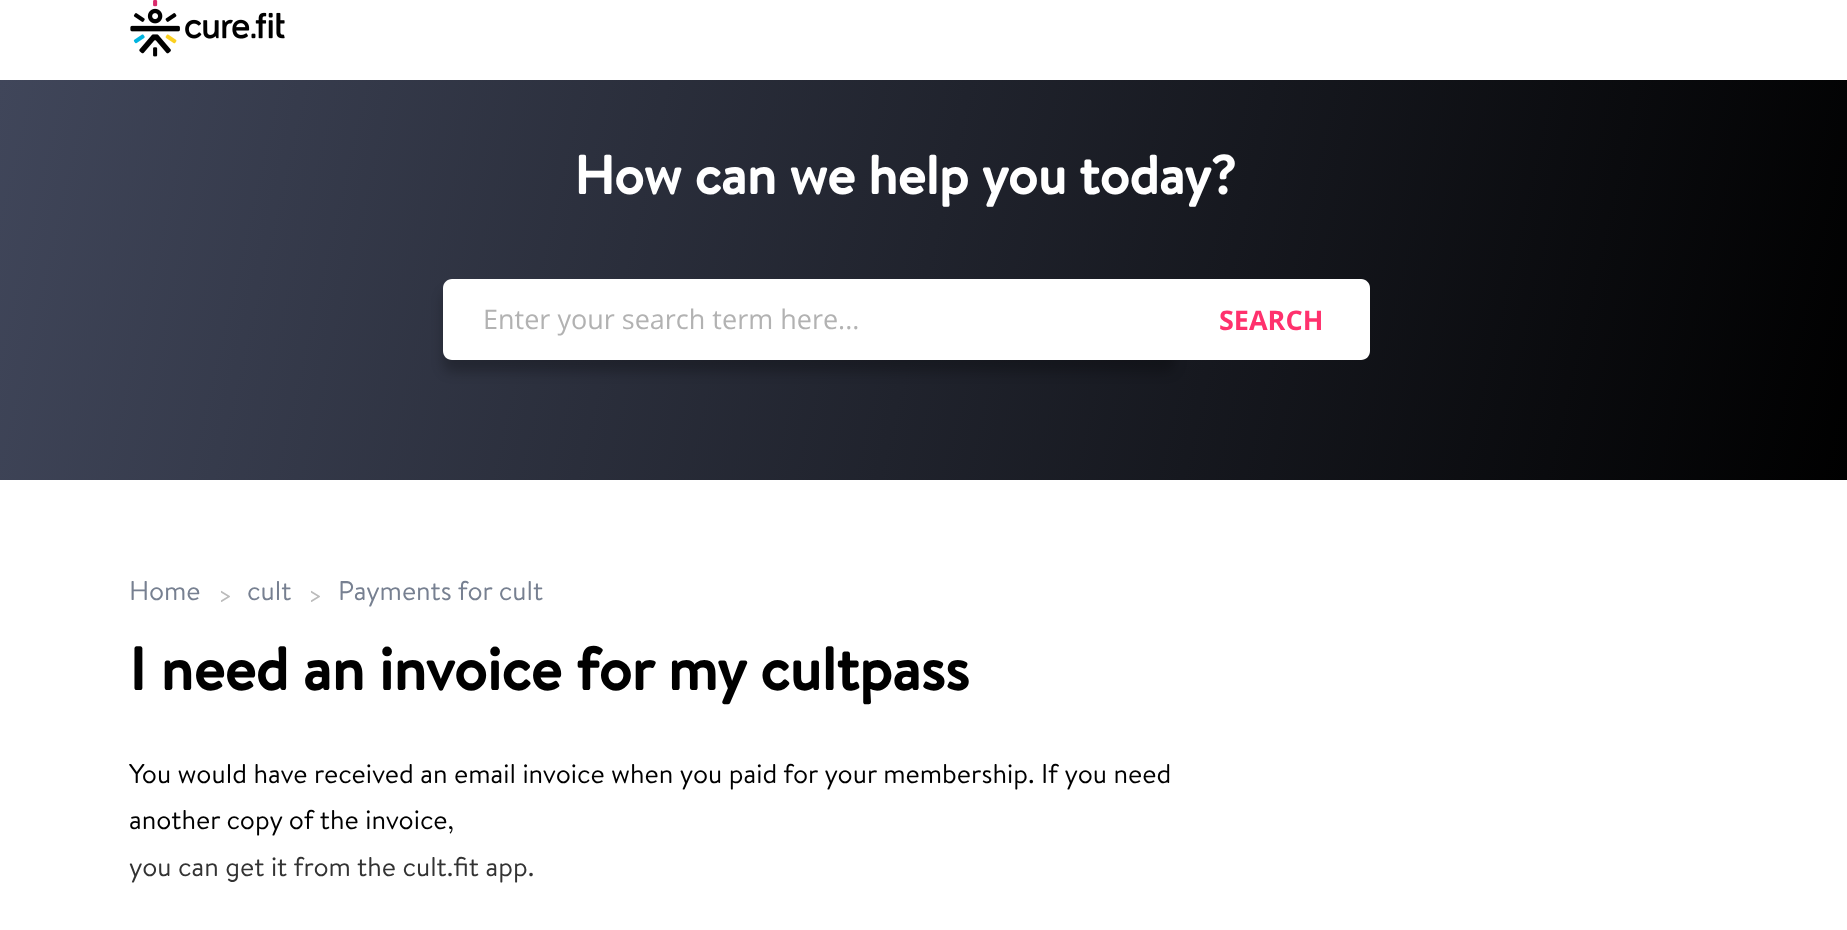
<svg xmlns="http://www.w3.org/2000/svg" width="1847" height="930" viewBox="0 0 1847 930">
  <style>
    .t1 { font: bold 54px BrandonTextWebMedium; fill: #fff; }
    .t2 { font: 27px Open Sans; fill: #b2b2b2; }
    .t3 { font: bold 27px Open Sans; fill: #ff316d; }
    .t4 { font: 27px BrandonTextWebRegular; fill: #778091; }
    .t5 { font: 24px BrandonTextWebRegular; fill: #bbb; }
    .t6 { font: bold 60px BrandonTextWebMedium; fill: #000; }
    .t7 { font: 27px BrandonTextWebRegular; fill: #000; }
    .t8 { font: 27px BrandonTextWebRegular; fill: #333; }
  </style>
  <defs>
    <clipPath id="clip1"><path d="M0 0H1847V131H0ZM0-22H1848V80H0Z" clip-rule="evenodd"/></clipPath>
    <linearGradient id="g1" gradientUnits="userSpaceOnUse" x1="2.9" y1="67" x2="1845" y2="492"><stop offset="0" stop-color="#40465a"/><stop offset="1" stop-color="#000"/></linearGradient>
  </defs>
  <rect width="100%" height="100%" fill="#fff"/>
  <g clip-path="url(#clip1)">
    <rect x="0" y="-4" width="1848" height="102" fill="#00000017" filter="blur(10.5px)"/>
  </g>
  <image x="130" y="0" width="155" height="57" href="images/1.png"/>
  <rect x="0" y="80" width="1847" height="400" fill="url(#g1)"/>
  <text x="574" y="194" class="t1">How can we help you today?</text>
  <rect x="443" y="291" width="732" height="81" rx="9" fill="#0000003d" filter="blur(6px)"/>
  <path d="M452 279H1175V360H452C447 360 443 356 443 351V288C443 283 447 279 452 279Z" fill="#fff"/>
  <text x="483" y="329" class="t2">Enter your search term here...</text>
  <path d="M1175 279H1361C1366 279 1370 283 1370 288V351C1370 356 1366 360 1361 360H1175Z" fill="#fff"/>
  <path d="M1175 279V280H1360C1365 280 1370 285 1370 290C1370 284 1367 279 1361 279Z" fill="#ffffff33"/>
  <text x="1219" y="330" class="t3">SEARCH</text>
  <text x="129" y="600" class="t4">Home</text>
  <text x="218" y="602" class="t5">&gt;</text>
  <text x="247" y="600" class="t4">cult</text>
  <text x="308" y="602" class="t5">&gt;</text>
  <text x="338" y="600" class="t4">Payments for cult</text>
  <text x="129" y="690" class="t6">I need an invoice for my cultpass</text>
  <text x="129" y="783" class="t7">You would have received an email invoice when you paid for your membership. If you need</text>
  <text x="129" y="829" class="t7">another copy of the invoice,</text>
  <text x="129" y="876" class="t8">you can get it from the cult.fit app.</text>
</svg>
